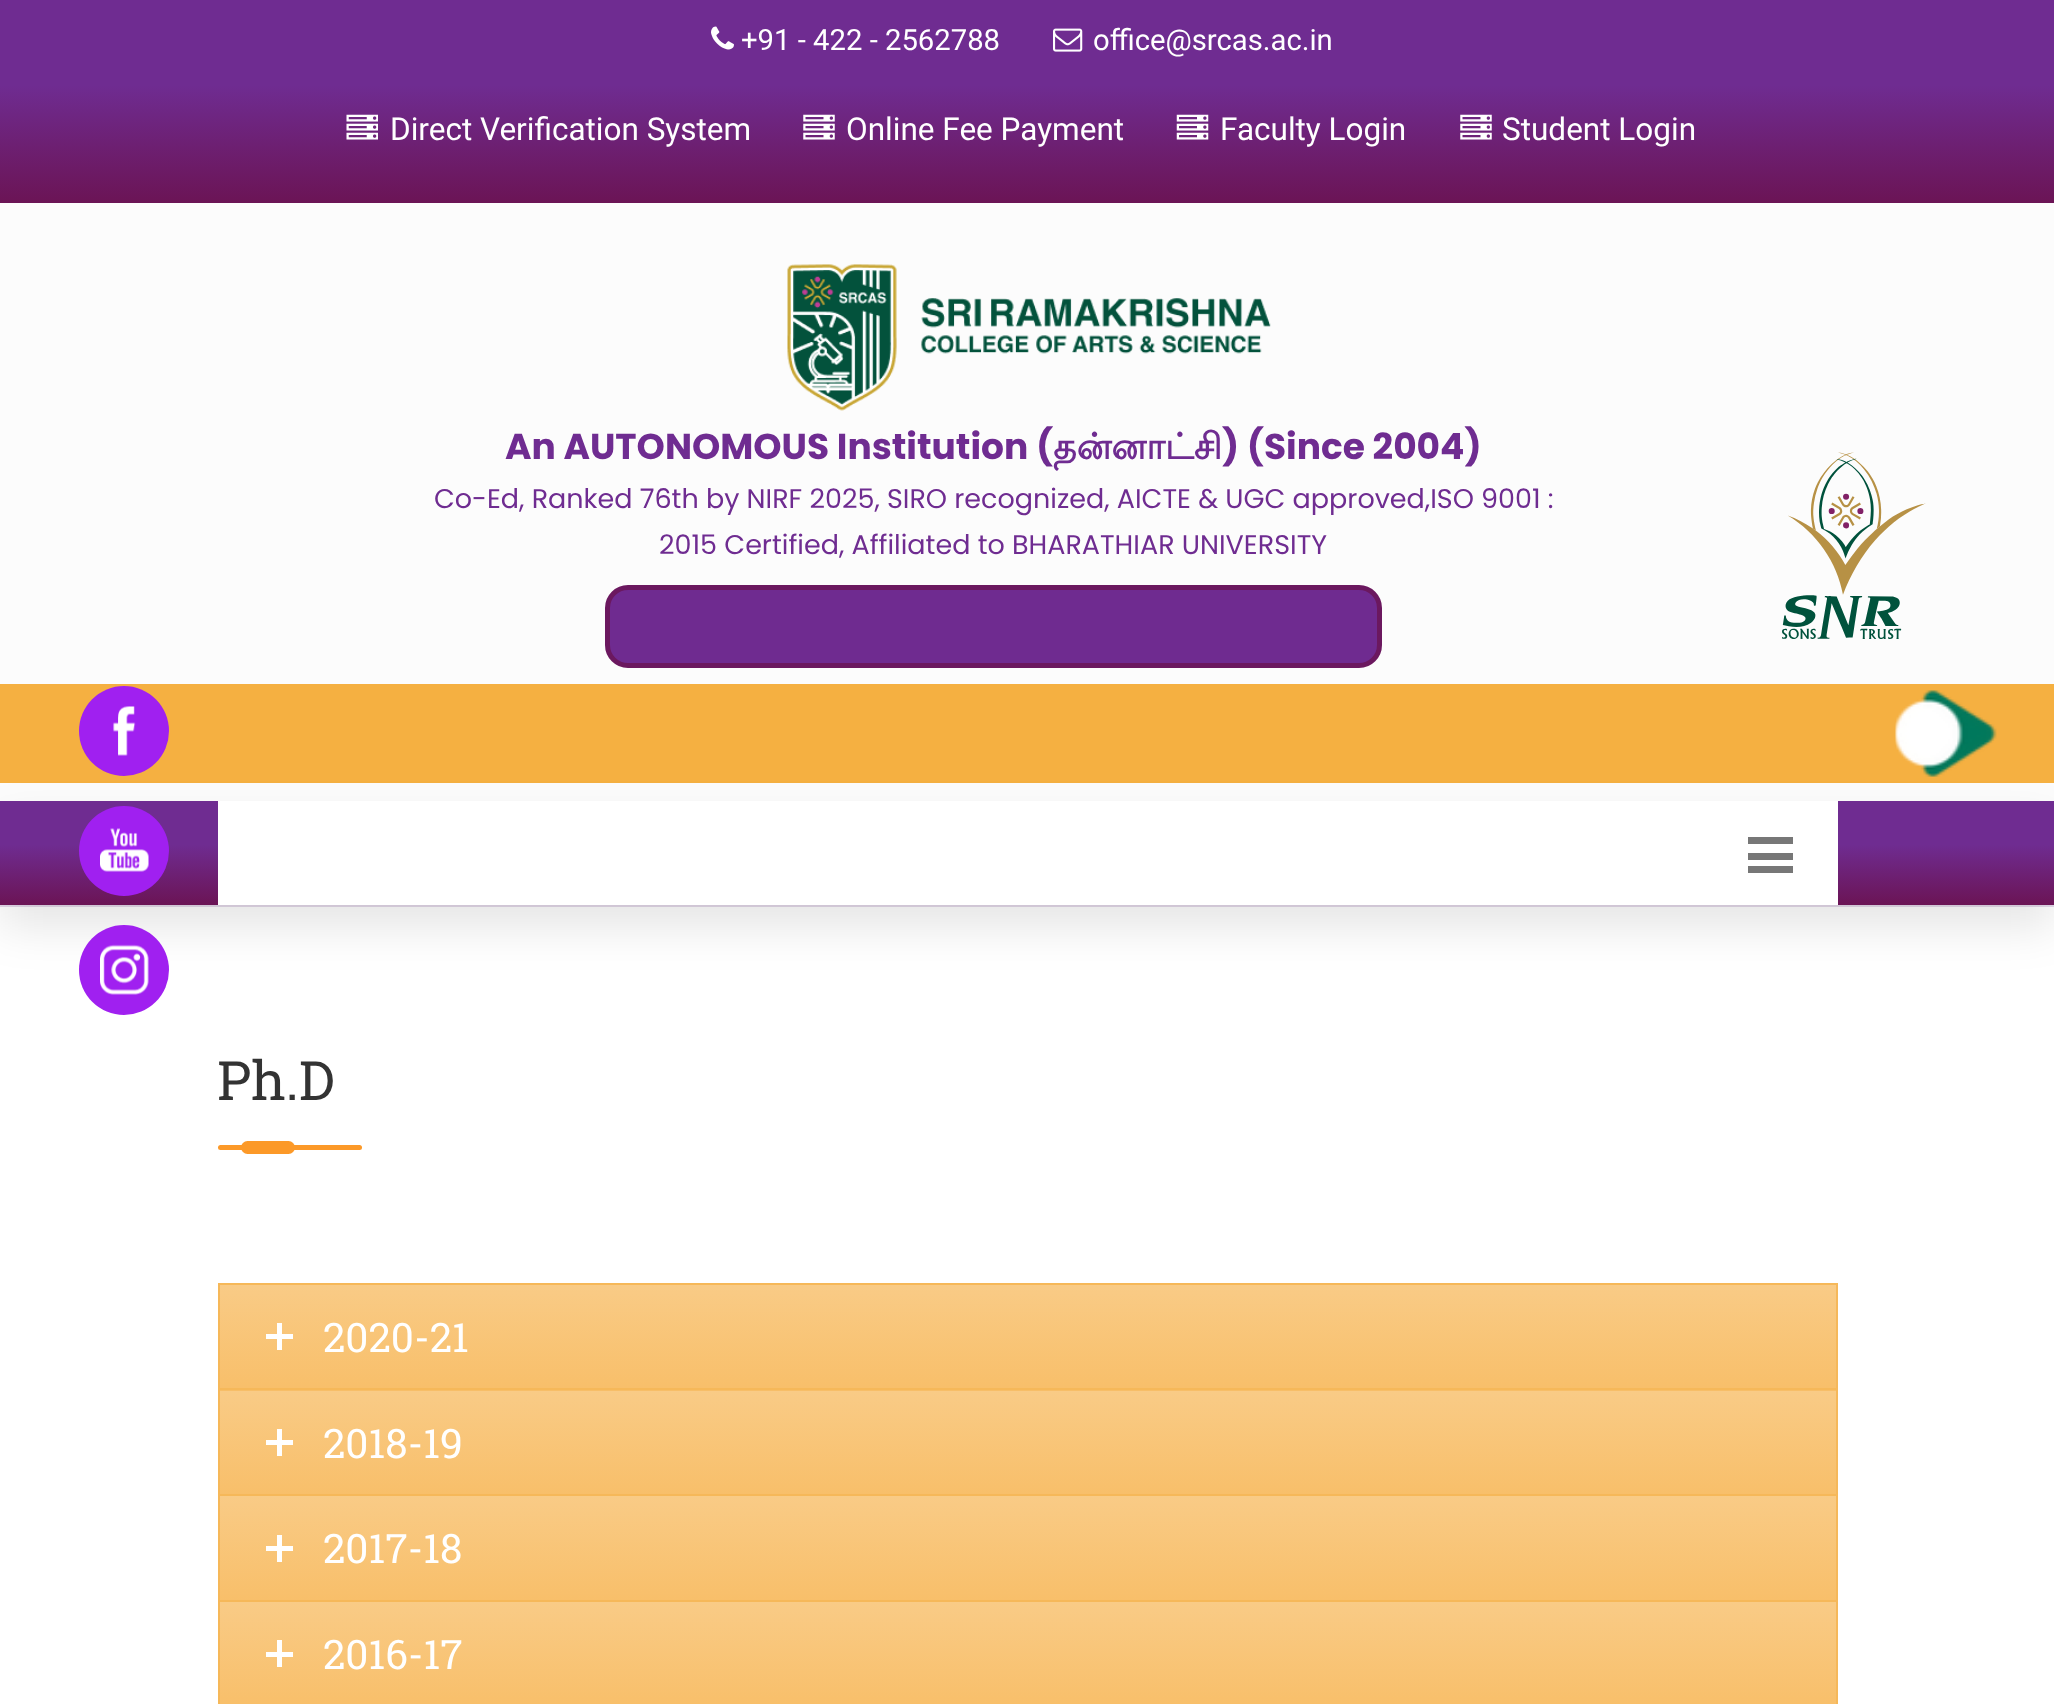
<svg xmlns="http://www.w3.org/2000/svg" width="2054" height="1704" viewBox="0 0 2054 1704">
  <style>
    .t1 { font: 29.25px Roboto; fill: #fff; }
    .t2 { font: 31.5px Roboto; fill: #fff; }
    .t3 { font: bold 36px Poppins; fill: #6f2c91; }
    .t4 { font: bold 36px Lohit Tamil; fill: #6f2c91; }
    .t5 { font: 27px Poppins; fill: #6f2c91; }
    .t6 { font: 54px Roboto Slab; fill: #333; }
    .t7 { font: 40.5px Roboto Slab; fill: #fff; }
  </style>
  <defs>
    <linearGradient id="g1" gradientUnits="userSpaceOnUse" x1="1027" y1="801" x2="1027" y2="905"><stop offset="0" stop-color="#6f2c91"/><stop offset="0.42" stop-color="#6f2c91"/><stop offset="1" stop-color="#6b1455"/></linearGradient>
    <clipPath id="clip1"><path d="M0 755H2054V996H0ZM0 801H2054V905H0Z" clip-rule="evenodd"/></clipPath>
    <linearGradient id="g2" gradientUnits="userSpaceOnUse" x1="1027" y1="0" x2="1027" y2="203"><stop offset="0" stop-color="#6f2c91"/><stop offset="0.42" stop-color="#6f2c91"/><stop offset="1" stop-color="#6b1455"/></linearGradient>
    <linearGradient id="g3" gradientUnits="userSpaceOnUse" x1="1028" y1="1285" x2="1028" y2="1388"><stop offset="0" stop-color="#f9cb86"/><stop offset="1" stop-color="#f8bf6a"/></linearGradient>
    <linearGradient id="g4" gradientUnits="userSpaceOnUse" x1="1028" y1="1391" x2="1028" y2="1494"><stop offset="0" stop-color="#f9cb86"/><stop offset="1" stop-color="#f8bf6a"/></linearGradient>
    <linearGradient id="g5" gradientUnits="userSpaceOnUse" x1="1028" y1="1496" x2="1028" y2="1600"><stop offset="0" stop-color="#f9cb86"/><stop offset="1" stop-color="#f8bf6a"/></linearGradient>
    <linearGradient id="g6" gradientUnits="userSpaceOnUse" x1="1028" y1="1602" x2="1028" y2="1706"><stop offset="0" stop-color="#f9cb86"/><stop offset="1" stop-color="#f8bf6a"/></linearGradient>
  </defs>
  <rect width="100%" height="100%" fill="#fff"/>
  <rect x="0" y="203" width="2054" height="598" fill="#fcfcfc"/>
  <rect x="0" y="684" width="2054" height="99" fill="#f5b041"/>
  <rect x="0" y="905" width="2054" height="2" fill="#e4d9ea"/>
  <image x="1895" y="690" width="102" height="87" href="images/11.png"/>
  <rect x="0" y="801" width="2054" height="104" fill="url(#g1)"/>
  <g clip-path="url(#clip1)">
    <rect x="0" y="824" width="2054" height="103" fill="#0000001a" filter="blur(22.5px)"/>
  </g>
  <circle cx="124" cy="731" r="45" fill="#a020f0"/>
  <image x="113" y="706" width="23" height="50" href="images/1.png"/>
  <circle cx="124" cy="851" r="45" fill="#a020f0"/>
  <image x="100" y="828" width="49" height="44" href="images/2.png"/>
  <circle cx="124" cy="970" r="45" fill="#a020f0"/>
  <image x="100" y="944" width="49" height="51" href="images/3.png"/>
  <rect x="0" y="0" width="2054" height="203" fill="url(#g2)"/>
  <image x="711" y="26" width="23" height="24" href="images/4.png"/>
  <text x="741" y="50" class="t1">+91 - 422 - 2562788</text>
  <image x="1053" y="28" width="30" height="24" href="images/5.png"/>
  <text x="1093" y="50" class="t1">office@srcas.ac.in</text>
  <image x="346" y="114" width="32" height="26" href="images/6.png"/>
  <text x="390" y="140" class="t2">Direct Verification System</text>
  <image x="803" y="114" width="32" height="26" href="images/7.png"/>
  <text x="846" y="140" class="t2">Online Fee Payment</text>
  <image x="1176" y="114" width="33" height="26" href="images/8.png"/>
  <text x="1220" y="140" class="t2">Faculty Login</text>
  <image x="1460" y="114" width="32" height="26" href="images/7.png"/>
  <text x="1502" y="140" class="t2">Student Login</text>
  <image x="787" y="264" width="484" height="147" href="images/9.png"/>
  <text x="505" y="459" class="t3">An AUTONOMOUS Institution (</text>
  <text x="1053" y="459" class="t4">தன்னாட்சி</text>
  <text x="1222" y="459" class="t3">) (Since 2004)</text>
  <text x="434" y="508" class="t5">Co-Ed, Ranked 76th by NIRF 2025, SIRO recognized, AICTE &amp; UGC approved,ISO 9001 :</text>
  <text x="659" y="554" class="t5">2015 Certified, Affiliated to BHARATHIAR UNIVERSITY</text>
  <rect x="607.5" y="587.5" width="772" height="78" rx="20.5" fill="#6f2b90" stroke="#6b185f" stroke-width="5"/>
  <image x="1782" y="452" width="144" height="187" href="images/10.png"/>
  <rect x="218" y="801" width="1620" height="104" fill="#fff"/>
  <rect x="1748" y="837" width="45" height="7" fill="#777"/>
  <rect x="1748" y="853" width="45" height="7" fill="#777"/>
  <rect x="1748" y="866" width="45" height="7" fill="#777"/>
  <text x="217" y="1100" class="t6">Ph.D</text>
  <rect x="241" y="1141" width="54" height="13" rx="6.5" fill="#fc9928"/>
  <rect x="218" y="1145" width="144" height="5" rx="2.5" fill="#fc9928"/>
  <rect x="220" y="1285" width="1616" height="103" fill="url(#g3)"/>
  <rect x="219" y="1284" width="1618" height="106" fill="none" stroke="#f6b859" stroke-width="2"/>
  <rect x="266" y="1334" width="27" height="5" fill="#fff"/>
  <rect x="277" y="1323" width="5" height="27" fill="#fff"/>
  <text x="323" y="1352" class="t7">2020-21</text>
  <rect x="220" y="1390" width="1616" height="1" fill="#f7be68"/>
  <rect x="220" y="1391" width="1616" height="103" fill="url(#g4)"/>
  <rect x="219" y="1389" width="1618" height="106" fill="none" stroke="#f6b859" stroke-width="2"/>
  <rect x="266" y="1440" width="27" height="5" fill="#fff"/>
  <rect x="277" y="1429" width="5" height="27" fill="#fff"/>
  <text x="323" y="1458" class="t7">2018-19</text>
  <rect x="220" y="1496" width="1616" height="104" fill="url(#g5)"/>
  <rect x="219" y="1495" width="1618" height="106" fill="none" stroke="#f6b859" stroke-width="2"/>
  <rect x="266" y="1546" width="27" height="5" fill="#fff"/>
  <rect x="277" y="1535" width="5" height="27" fill="#fff"/>
  <text x="323" y="1563" class="t7">2017-18</text>
  <rect x="220" y="1602" width="1616" height="102" fill="url(#g6)"/>
  <rect x="219" y="1601" width="1618" height="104" fill="none" stroke="#f6b859" stroke-width="2"/>
  <rect x="266" y="1652" width="27" height="5" fill="#fff"/>
  <rect x="277" y="1640" width="5" height="27" fill="#fff"/>
  <text x="323" y="1669" class="t7">2016-17</text>
</svg>
